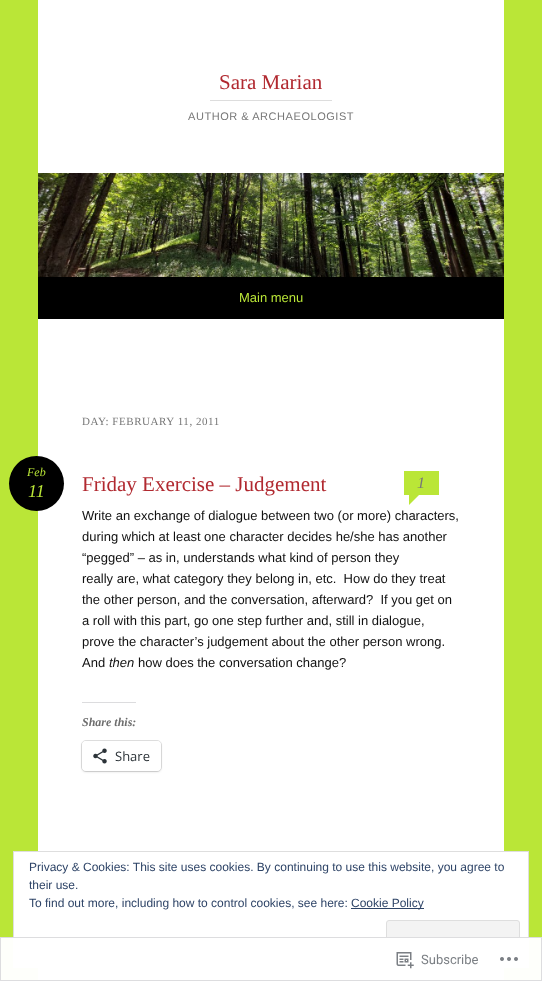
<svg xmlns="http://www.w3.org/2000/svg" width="542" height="981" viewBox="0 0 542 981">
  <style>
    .t1 { font: 21px Liberation Serif; fill: #b12930; }
    .t2 { font: 11px Liberation Sans; letter-spacing: 0.55px; fill: #777; }
    .t3 { font: 13px Liberation Sans; fill: #bae637; }
    .t4 { font: 11px Liberation Serif; letter-spacing: 0.55px; fill: #777; }
    .t5 { font: italic 12px Liberation Serif; fill: #bae637; }
    .t6 { font: italic 18px Liberation Serif; fill: #bae637; }
    .t7 { font: italic 16px Liberation Serif; fill: #777; }
    .t8 { font: 13px Liberation Sans; fill: #111; }
    .t9 { font: italic 13px Liberation Sans; fill: #111; }
    .t10 { font: italic bold 12px Liberation Serif; fill: #6d6d6d; }
    .t11 { font: 13px Open Sans; fill: #2c3338; }
    .t12 { font: 12px Liberation Sans; fill: #2e4467; }
    .t13 { font: 13px Roboto; fill: #7b7f84; }
  </style>
  <rect width="100%" height="100%" fill="#bae637"/>
  <rect x="38" y="0" width="466" height="981" fill="#fff"/>
  <rect x="210" y="100" width="122" height="1" fill="#ddd"/>
  <text x="219" y="89" class="t1">Sara Marian</text>
  <text x="188" y="120" class="t2">AUTHOR &amp; ARCHAEOLOGIST</text>
  <image x="38" y="173" width="466" height="104" href="images/1.png"/>
  <rect x="38" y="277" width="466" height="42" fill="#000"/>
  <text x="239" y="302" class="t3">Main menu</text>
  <text x="82" y="425" class="t4">DAY: FEBRUARY 11, 2011</text>
  <circle cx="36.5" cy="483.5" r="27.5" fill="#000"/>
  <text x="27" y="476" class="t5">Feb</text>
  <text x="28" y="497" class="t6">11</text>
  <text x="82" y="491" class="t1">Friday Exercise – Judgement</text>
  <rect x="404" y="471" width="35" height="24" fill="#bae637"/>
  <text x="417" y="488" class="t7">1</text>
  <path d="M409 505V495H419Z" fill="#bae637"/>
  <text x="82" y="520" class="t8">Write an exchange of dialogue between two (or more) characters,</text>
  <text x="82" y="541" class="t8">during which at least one character decides he/she has another</text>
  <text x="82" y="562" class="t8">“pegged” – as in, understands what kind of person they</text>
  <text x="82" y="583" class="t8" xml:space="preserve">really are, what category they belong in, etc.  How do they treat</text>
  <text x="82" y="604" class="t8" xml:space="preserve">the other person, and the conversation, afterward?  If you get on</text>
  <text x="82" y="625" class="t8">a roll with this part, go one step further and, still in dialogue,</text>
  <text x="82" y="646" class="t8">prove the character’s judgement about the other person wrong.</text>
  <text x="82" y="667" class="t8">And</text>
  <text x="109" y="667" class="t9">then</text>
  <text x="138" y="667" class="t8">how does the conversation change?</text>
  <rect x="82" y="702" width="54" height="1" fill="#dcdcde"/>
  <text x="82" y="726" class="t10">Share this:</text>
  <rect x="81.5" y="740.5" width="80" height="31" rx="4.5" fill="none" stroke="#e0e0e0"/>
  <rect x="82" y="742" width="79" height="30" rx="4" fill="#0000001f" filter="blur(1px)"/>
  <rect x="82" y="741" width="79" height="30" rx="4" fill="#fff"/>
  <image x="93" y="748" width="14" height="16" href="images/2.png"/>
  <text x="115" y="761" class="t11">Share</text>
  <rect x="13.5" y="851.5" width="515" height="116" fill="#fff" stroke="#dedede"/>
  <text x="29" y="871" class="t12">Privacy &amp; Cookies: This site uses cookies. By continuing to use this website, you agree to</text>
  <text x="29" y="889" class="t12">their use.</text>
  <text x="29" y="907" class="t12">To find out more, including how to control cookies, see here:</text>
  <rect x="351" y="908" width="73" height="1" fill="#2e4467"/>
  <text x="351" y="907" class="t12">Cookie Policy</text>
  <rect x="386.5" y="920.5" width="133" height="38" rx="2.5" fill="#f3f3f3" stroke="#dedede"/>
  <rect x="0" y="937" width="542" height="44" fill="#fffffffa"/>
  <rect x="0.5" y="937.5" width="541" height="43" fill="none" stroke="#dcdcdefa"/>
  <image x="396" y="952" width="18" height="17" href="images/3.png"/>
  <text x="421" y="964" class="t13">Subscribe</text>
  <image x="500" y="957" width="18" height="4" href="images/4.png"/>
</svg>
